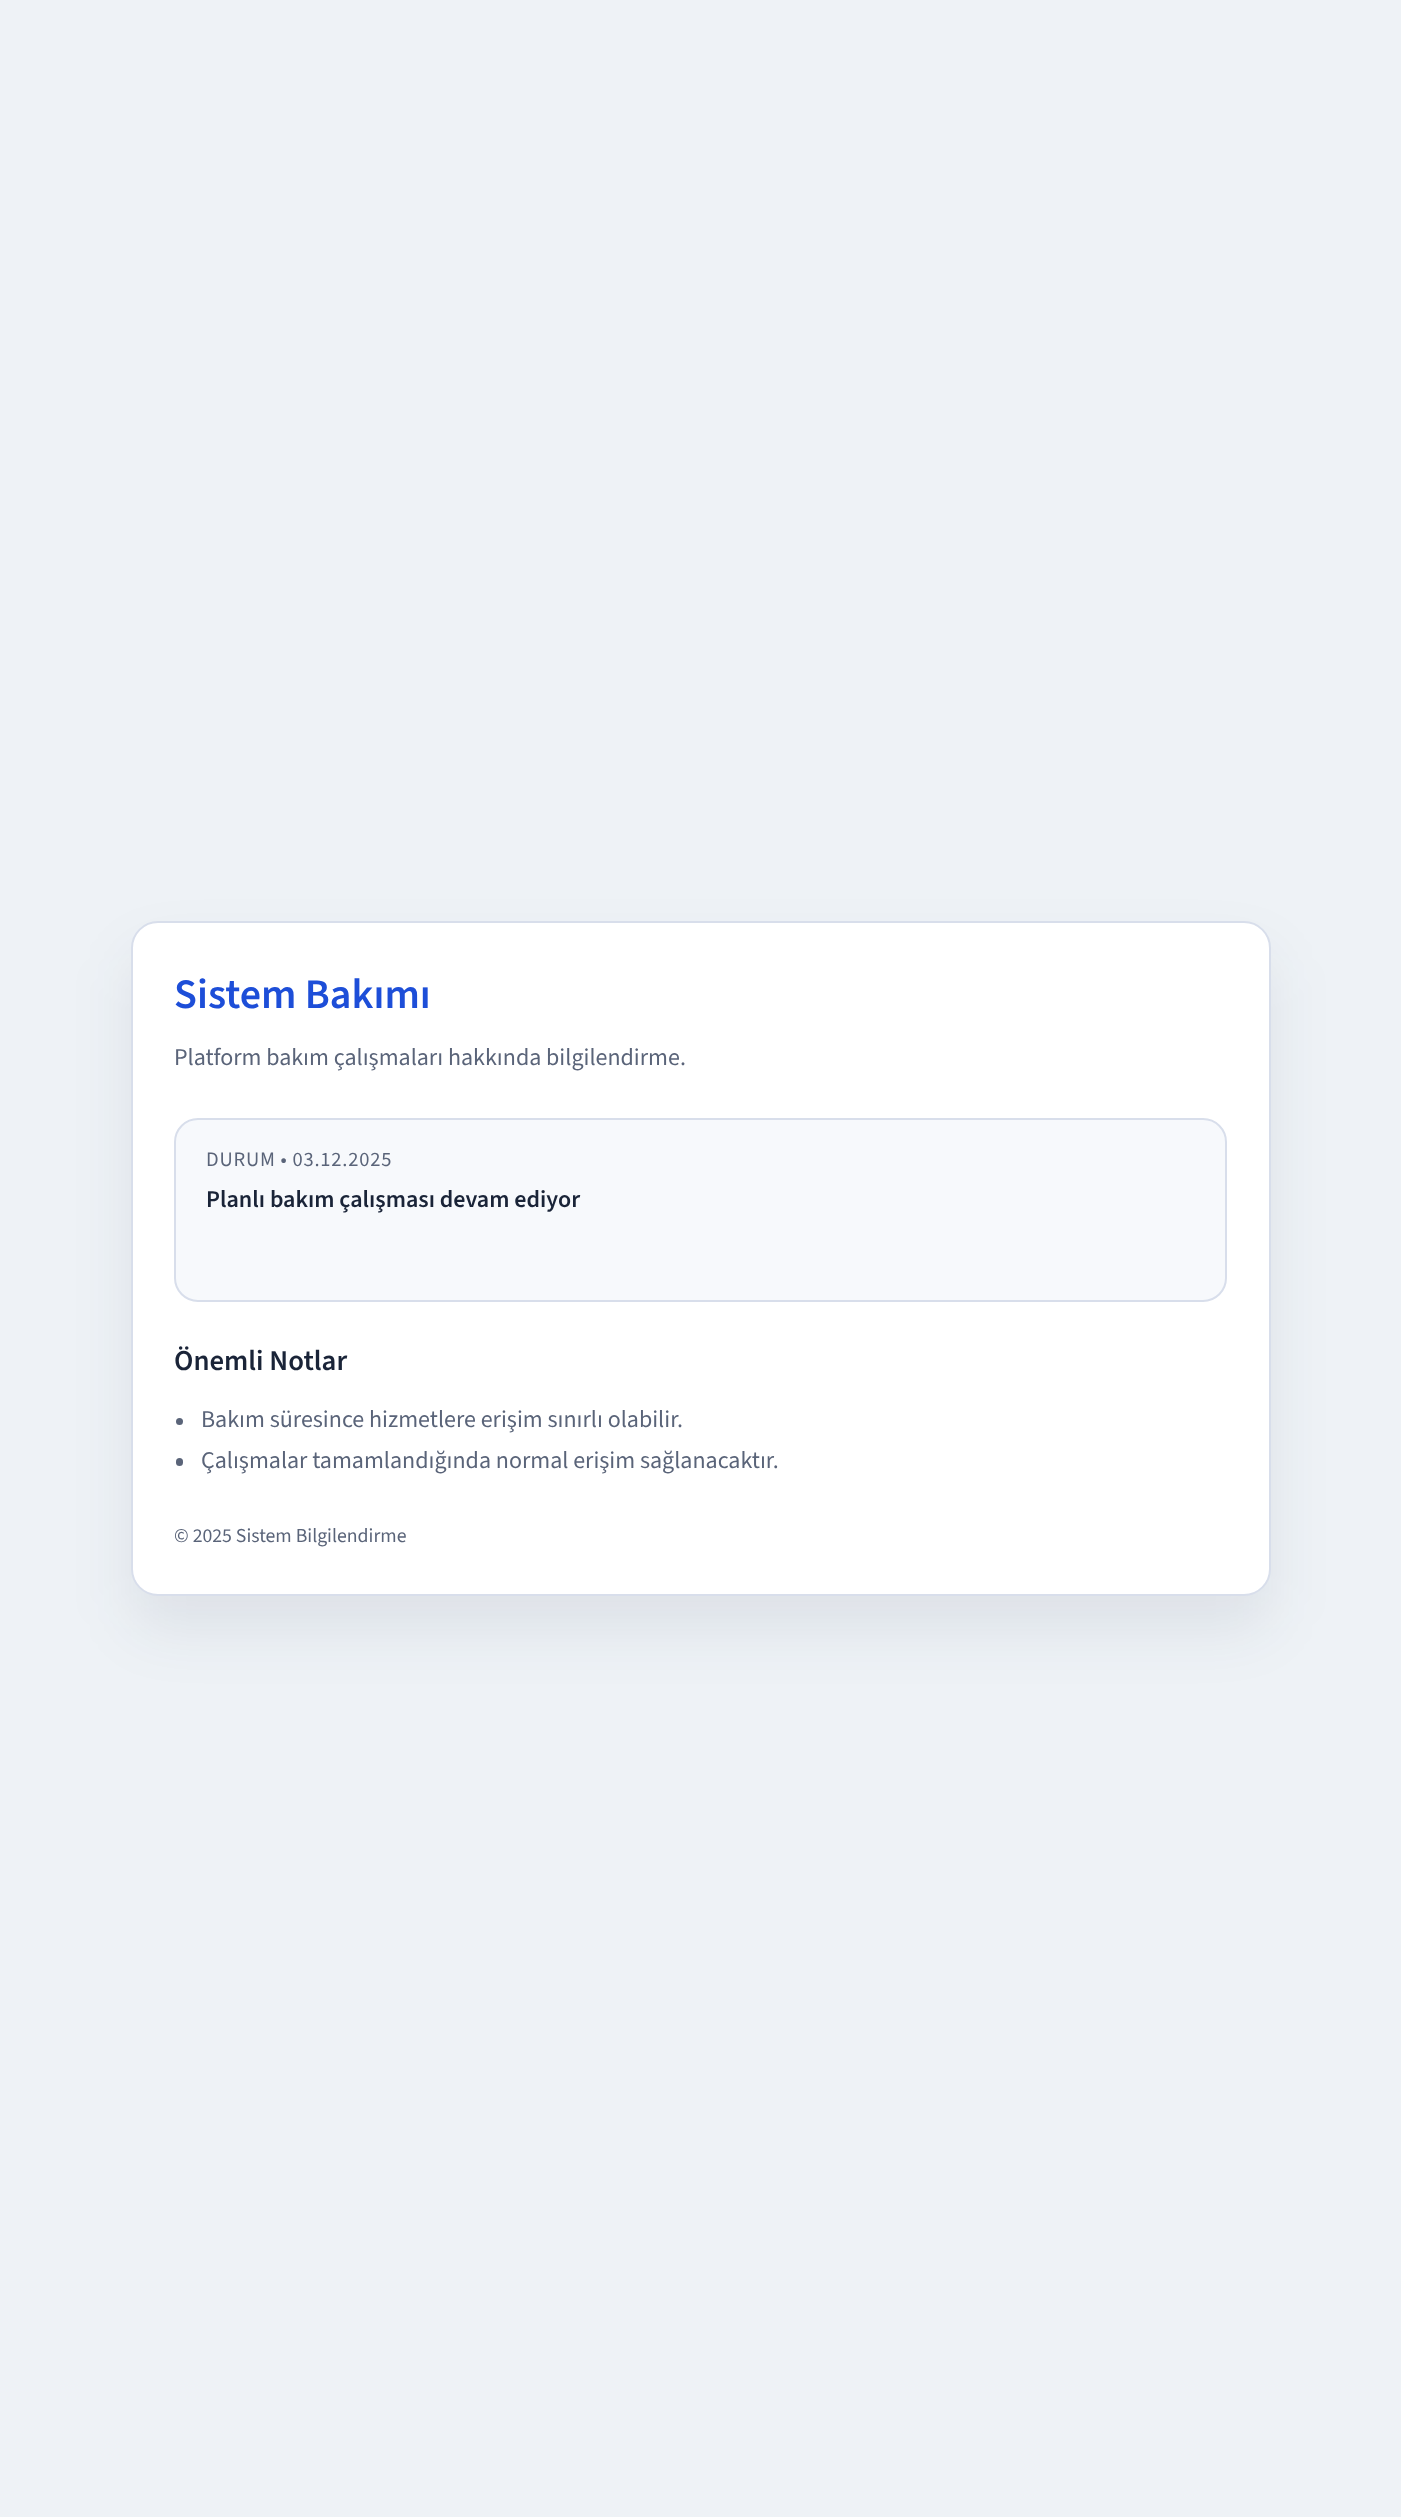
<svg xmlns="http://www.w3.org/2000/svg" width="1401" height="2517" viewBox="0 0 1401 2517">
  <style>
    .t1 { font: 600 42px 'Source Sans 3'; fill: #1d4ed8; }
    .t2 { font: 24px 'Source Sans 3'; fill: #5a6479; }
    .t3 { font: 20.5px 'Source Sans 3'; letter-spacing: 0.8px; fill: #5a6479; }
    .t4 { font: 600 24px 'Source Sans 3'; fill: #1a2438; }
    .t5 { font: 600 28.75px 'Source Sans 3'; fill: #1a2438; }
    .t6 { font: 19.75px 'Source Sans 3'; fill: #5a6479; }
  </style>
  <rect width="100%" height="100%" fill="#eef2f6"/>
  <rect x="131" y="954" width="1140" height="675" rx="27" fill="#1b233a14" filter="blur(30px)"/>
  <rect x="132" y="922" width="1138" height="673" rx="26" fill="#fff" stroke="#d8deeb" stroke-width="2"/>
  <text x="174" y="1008" class="t1">Sistem Bakımı</text>
  <text x="174" y="1065" class="t2">Platform bakım çalışmaları hakkında bilgilendirme.</text>
  <rect x="175" y="1119" width="1051" height="182" rx="23" fill="#f7f9fc" stroke="#d8deeb" stroke-width="2"/>
  <text x="206" y="1166" class="t3">DURUM • 03.12.2025</text>
  <text x="206" y="1207" class="t4">Planlı bakım çalışması devam ediyor</text>
  <text x="174" y="1370" class="t5">Önemli Notlar</text>
  <circle cx="179.5" cy="1421.5" r="3.5" fill="#5a6479"/>
  <text x="201" y="1427" class="t2">Bakım süresince hizmetlere erişim sınırlı olabilir.</text>
  <rect x="176" y="1458" width="7" height="8" rx="3.5" fill="#5a6479"/>
  <text x="201" y="1468" class="t2">Çalışmalar tamamlandığında normal erişim sağlanacaktır.</text>
  <text x="174" y="1542" class="t6">© 2025 Sistem Bilgilendirme</text>
</svg>
